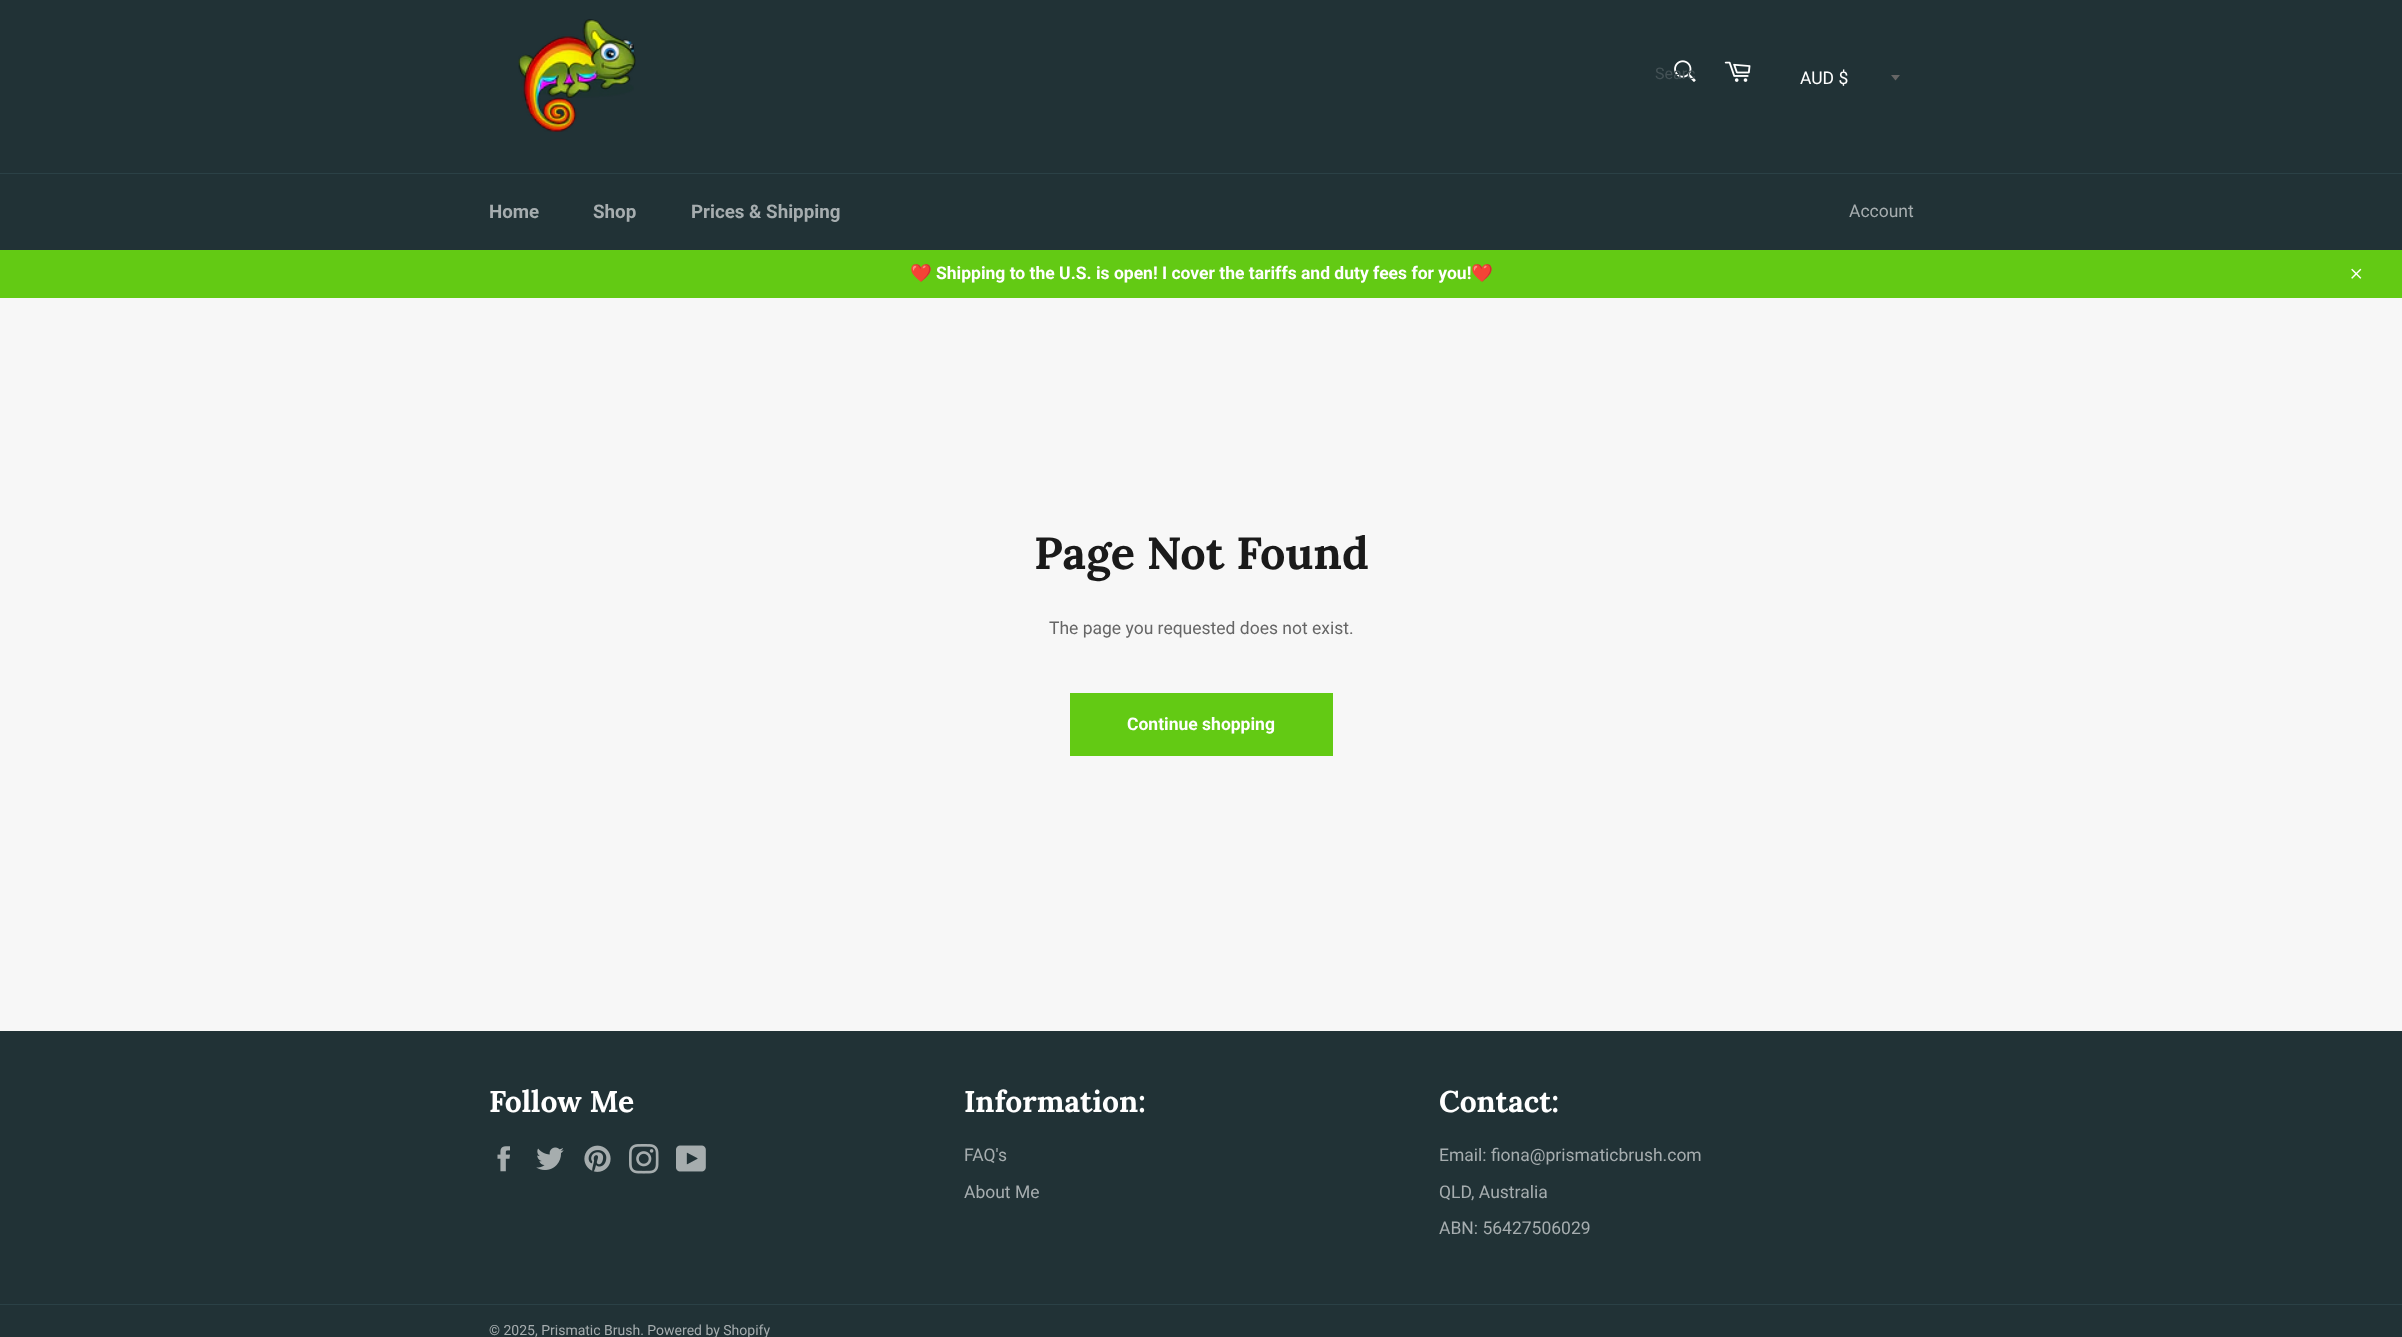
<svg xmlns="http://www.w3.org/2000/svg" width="2402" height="1337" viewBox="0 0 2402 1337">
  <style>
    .t1 { font: 16px Roboto; fill: #445256; }
    .t2 { font: 17.5px Roboto; fill: #fff; }
    .t3 { font: bold 18.75px Roboto; fill: #a6adaf; }
    .t4 { font: 17.5px Roboto; fill: #a6adaf; }
    .t5 { font: bold 17.5px Noto Color Emoji; fill: #fff; }
    .t6 { font: bold 17.5px Roboto; fill: #fff; }
    .t7 { font: bold 45px Lora; fill: #1a1a1a; }
    .t8 { font: 17.5px Roboto; fill: #666; }
    .t9 { font: bold 30px Lora; fill: #fff; }
    .t10 { font: 14px Roboto; fill: #a6adaf; }
  </style>
  <defs>
    <clipPath id="clip1"><rect x="1655" y="64" width="40" height="19"/></clipPath>
  </defs>
  <rect width="100%" height="100%" fill="#f7f7f7"/>
  <rect x="0" y="0" width="2402" height="173" fill="#213236"/>
  <image x="518" y="19" width="118" height="113" href="images/1.png"/>
  <image x="1674" y="60" width="22" height="22" href="images/2.png"/>
  <g clip-path="url(#clip1)">
    <text x="1655" y="79" class="t1">Searc</text>
  </g>
  <image x="1724" y="61" width="27" height="21" href="images/3.png"/>
  <path d="M1891 75L1895.5 80.5L1900 75Z" fill="#666"/>
  <text x="1800" y="84" class="t2">AUD $</text>
  <rect x="0" y="174" width="2402" height="76" fill="#213236"/>
  <rect x="0" y="173" width="2402" height="1" fill="#2b4146"/>
  <text x="489" y="218" class="t3">Home</text>
  <text x="593" y="218" class="t3">Shop</text>
  <text x="691" y="218" class="t3">Prices &amp; Shipping</text>
  <text x="1849" y="217" class="t4">Account</text>
  <rect x="0" y="250" width="2402" height="48" fill="#63ca14"/>
  <text x="910" y="279" class="t5">❤️</text>
  <text x="936" y="279" class="t6">Shipping to the U.S. is open! I cover the tariffs and duty fees for you!</text>
  <text x="1471" y="279" class="t5">❤️</text>
  <image x="2351" y="268" width="11" height="11" href="images/4.png"/>
  <text x="1034" y="569" class="t7">Page Not Found</text>
  <text x="1049" y="634" class="t8">The page you requested does not exist.</text>
  <rect x="1070" y="693" width="263" height="63" fill="#63ca14"/>
  <text x="1127" y="730" class="t6">Continue shopping</text>
  <rect x="0" y="1031" width="2402" height="306" fill="#213236"/>
  <text x="489" y="1112" class="t9">Follow Me</text>
  <image x="497" y="1146" width="13" height="26" href="images/5.png"/>
  <image x="536" y="1147" width="28" height="23" href="images/6.png"/>
  <image x="584" y="1145" width="27" height="27" href="images/7.png"/>
  <image x="629" y="1144" width="30" height="30" href="images/8.png"/>
  <image x="676" y="1145" width="30" height="27" href="images/9.png"/>
  <text x="964" y="1112" class="t9">Information:</text>
  <text x="964" y="1161" class="t4">FAQ's</text>
  <text x="964" y="1198" class="t4">About Me</text>
  <text x="1439" y="1112" class="t9">Contact:</text>
  <text x="1439" y="1161" class="t4">Email: fiona@prismaticbrush.com</text>
  <text x="1439" y="1198" class="t4">QLD, Australia</text>
  <text x="1439" y="1234" class="t4">ABN: 56427506029</text>
  <rect x="0" y="1304" width="2402" height="1" fill="#2b4146"/>
  <text x="489" y="1335" class="t10">© 2025, Prismatic Brush. Powered by Shopify</text>
</svg>
